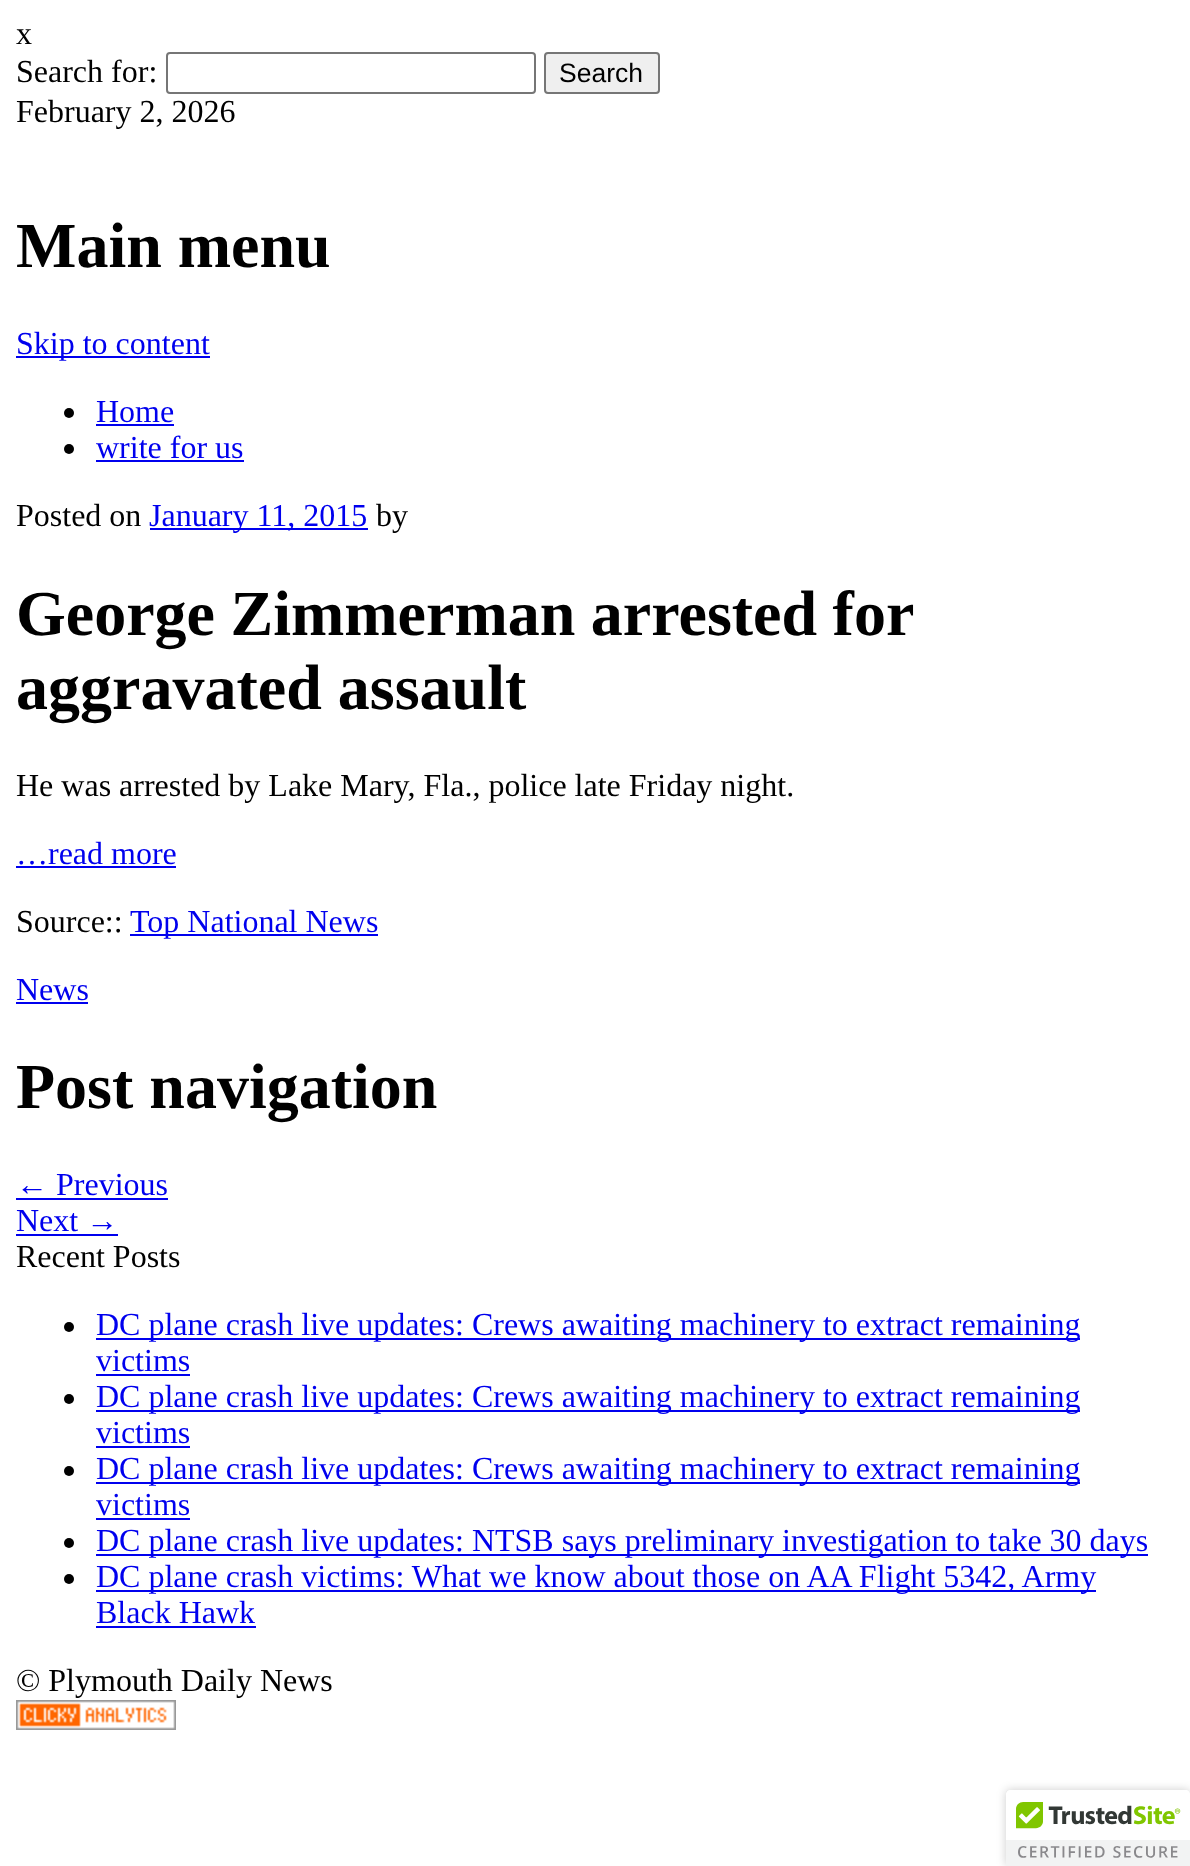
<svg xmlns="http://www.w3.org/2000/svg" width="1190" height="1866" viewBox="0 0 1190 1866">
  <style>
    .t1 { font: 32px Liberation Serif; fill: #000; }
    .t2 { font: 26.5px Liberation Sans; fill: #000; }
    .t3 { font: bold 64px Liberation Serif; fill: #000; }
    .t4 { font: 32px Liberation Serif; fill: #00e; }
  </style>
  <rect width="100%" height="100%" fill="#fff"/>
  <text x="16" y="44" class="t1">x</text>
  <text x="16" y="82" class="t1">Search for:</text>
  <rect x="167" y="53" width="368" height="40" rx="3" fill="none" stroke="#767676" stroke-width="2"/>
  <rect x="545" y="53" width="114" height="40" rx="3" fill="#efefef" stroke="#767676" stroke-width="2"/>
  <text x="559" y="82" class="t2">Search</text>
  <text x="16" y="122" class="t1">February 2, 2026</text>
  <text x="16" y="267" class="t3">Main menu</text>
  <rect x="16" y="356" width="194" height="2" fill="#00e"/>
  <text x="16" y="354" class="t4">Skip to content</text>
  <circle cx="69" cy="413" r="5" fill="#000"/>
  <text x="96" y="422" class="t4">Home</text>
  <rect x="96" y="424" width="78" height="2" fill="#00e"/>
  <circle cx="69" cy="449" r="5" fill="#000"/>
  <text x="96" y="458" class="t4">write for us</text>
  <rect x="96" y="460" width="148" height="2" fill="#00e"/>
  <text x="16" y="526" class="t1">Posted on</text>
  <rect x="150" y="528" width="218" height="2" fill="#00e"/>
  <text x="149" y="526" class="t4">January 11, 2015</text>
  <text x="376" y="526" class="t1">by</text>
  <text x="16" y="635" word-spacing="-0.5" class="t3">George Zimmerman arrested for</text>
  <text x="16" y="709" class="t3">aggravated assault</text>
  <text x="16" y="796" class="t1">He was arrested by Lake Mary, Fla., police late Friday night.</text>
  <text x="16" y="864" class="t4">…read more</text>
  <rect x="16" y="866" width="160" height="2" fill="#00e"/>
  <text x="16" y="932" class="t1">Source::</text>
  <rect x="130" y="934" width="248" height="2" fill="#00e"/>
  <text x="130" y="932" class="t4">Top National News</text>
  <text x="16" y="1000" class="t4">News</text>
  <rect x="16" y="1002" width="72" height="2" fill="#00e"/>
  <text x="16" y="1108" class="t3">Post navigation</text>
  <text x="16" y="1195" class="t4">← Previous</text>
  <rect x="16" y="1198" width="152" height="2" fill="#00e"/>
  <text x="16" y="1231" class="t4">Next →</text>
  <rect x="16" y="1234" width="102" height="2" fill="#00e"/>
  <text x="16" y="1267" class="t1">Recent Posts</text>
  <circle cx="69" cy="1327" r="5" fill="#000"/>
  <rect x="96" y="1338" width="984" height="2" fill="#00e"/>
  <text x="96" y="1335" class="t4">DC plane crash live updates: Crews awaiting machinery to extract remaining</text>
  <text x="96" y="1371" class="t4">victims</text>
  <rect x="96" y="1374" width="94" height="2" fill="#00e"/>
  <circle cx="69" cy="1399" r="5" fill="#000"/>
  <rect x="96" y="1410" width="984" height="2" fill="#00e"/>
  <text x="96" y="1407" class="t4">DC plane crash live updates: Crews awaiting machinery to extract remaining</text>
  <text x="96" y="1443" class="t4">victims</text>
  <rect x="96" y="1446" width="94" height="2" fill="#00e"/>
  <circle cx="69" cy="1471" r="5" fill="#000"/>
  <rect x="96" y="1482" width="984" height="2" fill="#00e"/>
  <text x="96" y="1479" class="t4">DC plane crash live updates: Crews awaiting machinery to extract remaining</text>
  <text x="96" y="1515" class="t4">victims</text>
  <rect x="96" y="1518" width="94" height="2" fill="#00e"/>
  <circle cx="69" cy="1543" r="5" fill="#000"/>
  <rect x="96" y="1554" width="1052" height="2" fill="#00e"/>
  <text x="96" y="1551" class="t4">DC plane crash live updates: NTSB says preliminary investigation to take 30 days</text>
  <circle cx="69" cy="1579" r="5" fill="#000"/>
  <rect x="96" y="1590" width="1000" height="2" fill="#00e"/>
  <text x="96" y="1587" class="t4">DC plane crash victims: What we know about those on AA Flight 5342, Army</text>
  <text x="96" y="1623" class="t4">Black Hawk</text>
  <rect x="96" y="1626" width="160" height="2" fill="#00e"/>
  <text x="16" y="1691" class="t1">© Plymouth Daily News</text>
  <image x="16" y="1700" width="160" height="30" href="images/1.png"/>
  <rect x="1006" y="1790" width="184" height="76" rx="4" fill="#00000033" filter="blur(5px)"/>
  <path d="M1010 1790H1190V1866H1006V1794C1006 1792 1008 1790 1010 1790Z" fill="#fff"/>
  <image x="1006" y="1790" width="184" height="76" href="images/2.png"/>
</svg>
